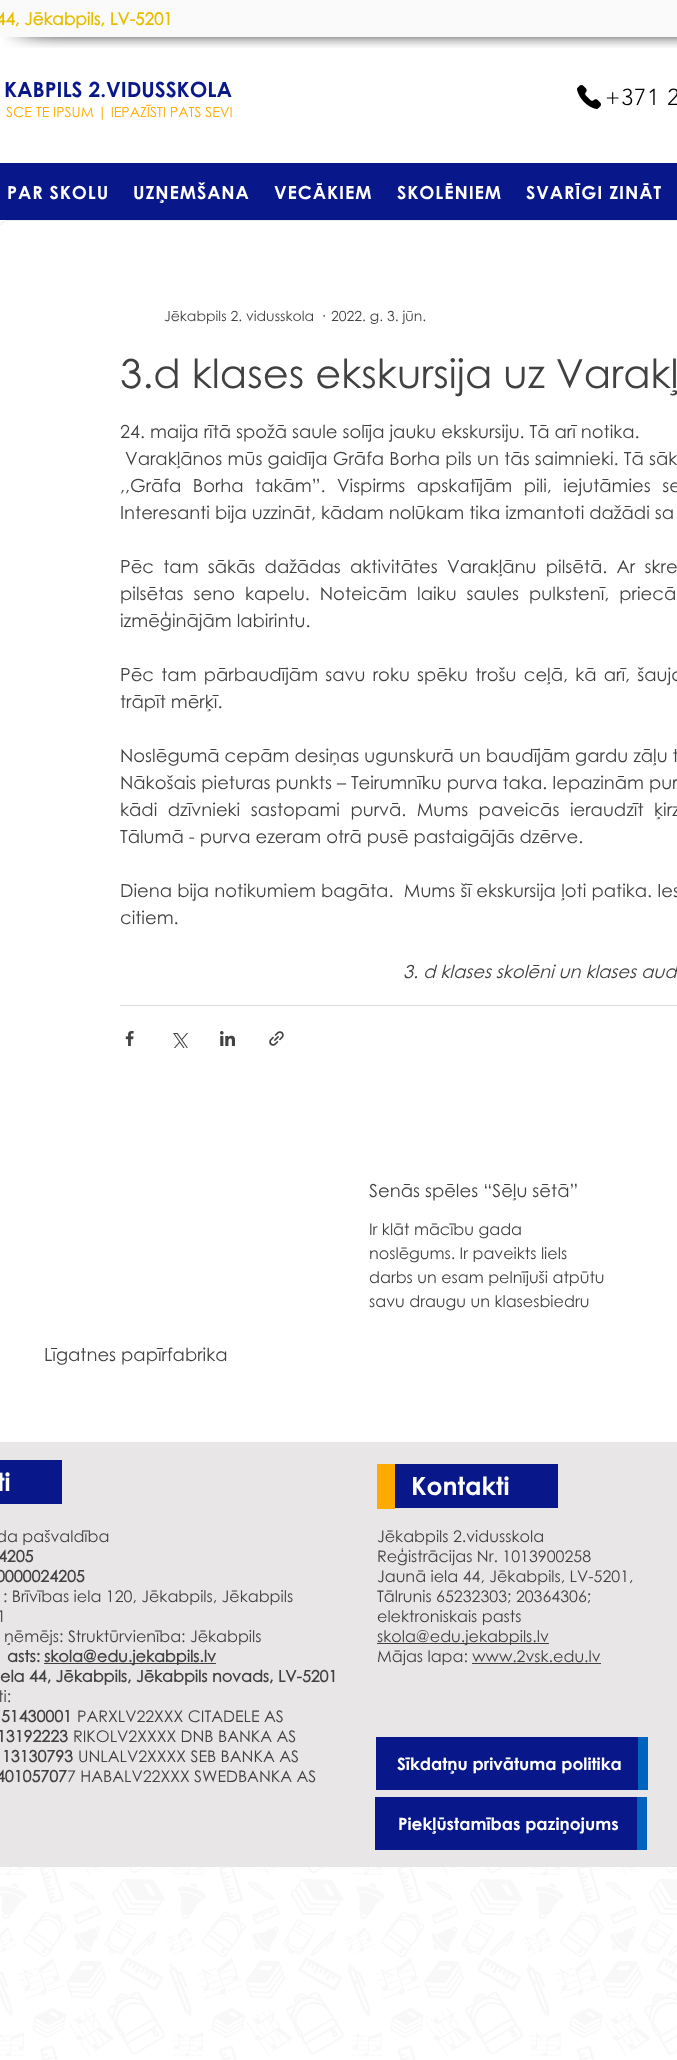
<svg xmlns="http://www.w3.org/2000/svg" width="677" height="2060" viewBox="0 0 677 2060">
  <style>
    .t1 { font: bold 17px Century Gothic; fill: #e6be00; }
    .t2 { font: bold 21px 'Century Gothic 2'; fill: #08188a; }
    .t3 { font: 300 23px 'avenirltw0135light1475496'; letter-spacing: 1px; fill: #000; }
    .t4 { font: 14px Century Gothic; fill: #fa0; }
    .t5 { font: bold 18px 'Century Gothic 2'; letter-spacing: 0.9px; fill: #fff; }
    .t6 { font: 14px Century Gothic; fill: #414141; }
    .t7 { font: 40px Century Gothic; fill: #414141; }
    .t8 { font: 18px Century Gothic; fill: #414141; }
    .t9 { font: italic 18px Century Gothic; fill: #414141; }
    .t10 { font: 16px Century Gothic; fill: #414141; }
    .t11 { font: bold 25px 'Century Gothic 2'; fill: #fff; }
    .t12 { font: bold 16px Century Gothic; fill: #414141; }
    .t13 { font: bold 17px 'Century Gothic 2'; fill: #fff; }
  </style>
  <rect width="100%" height="100%" fill="#fff"/>
  <rect x="0" y="0" width="677" height="37" fill="#fafafa"/>
  <text x="-4" y="25" class="t1">44, Jēkabpils, LV-5201</text>
  <image x="3" y="37" width="97" height="11" href="images/1.png"/>
  <image x="100" y="37" width="577" height="11" href="images/2.png"/>
  <text x="4" y="97" class="t2">KABPILS 2.VIDUSSKOLA</text>
  <image x="577" y="85" width="24" height="24" href="images/3.png"/>
  <text x="605" y="105" class="t3">+371 2</text>
  <text x="6" y="117" class="t4">SCE TE IPSUM | IEPAZĪSTI PATS SEVI</text>
  <rect x="0" y="163" width="677" height="57" fill="#08188a"/>
  <text x="7" y="199" class="t5">PAR SKOLU</text>
  <text x="133" y="199" class="t5">UZŅEMŠANA</text>
  <text x="274" y="199" class="t5">VECĀKIEM</text>
  <text x="397" y="199" class="t5">SKOLĒNIEM</text>
  <text x="526" y="199" class="t5">SVARĪGI ZINĀT</text>
  <rect x="0.5" y="220.5" width="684" height="1221" rx="6.5" fill="none" stroke="#4141411a"/>
  <rect x="0" y="225" width="677" height="1217" fill="#fff"/>
  <text x="164" y="321" class="t6">Jēkabpils 2. vidusskola</text>
  <text x="320" y="321" class="t6">·</text>
  <text x="331" y="321" class="t6">2022. g. 3. jūn.</text>
  <text x="120" y="388" class="t7">3.d klases ekskursija uz Varakļ</text>
  <text x="120" y="438" class="t8">24. maija rītā spožā saule solīja jauku ekskursiju. Tā arī notika.</text>
  <text x="125" y="465" word-spacing="0.25" class="t8">Varakļānos mūs gaidīja Grāfa Borha pils un tās saimnieki. Tā sāk</text>
  <text x="120" y="492" word-spacing="6.5" class="t8">,,Grāfa Borha takām”. Vispirms apskatījām pili, iejutāmies se</text>
  <text x="120" y="519" class="t8">Interesanti bija uzzināt, kādam nolūkam tika izmantoti dažādi sa</text>
  <text x="120" y="573" word-spacing="4.25" class="t8">Pēc tam sākās dažādas aktivitātes Varakļānu pilsētā. Ar skre</text>
  <text x="120" y="600" word-spacing="5" class="t8">pilsētas seno kapelu. Noteicām laiku saules pulkstenī, priecā</text>
  <text x="120" y="627" class="t8">izmēģinājām labirintu.</text>
  <text x="120" y="681" word-spacing="2.25" class="t8">Pēc tam pārbaudījām savu roku spēku trošu ceļā, kā arī, šaujo</text>
  <text x="120" y="708" class="t8">trāpīt mērķī.</text>
  <text x="120" y="762" class="t8">Noslēgumā cepām desiņas ugunskurā un baudījām gardu zāļu t</text>
  <text x="120" y="789" class="t8">Nākošais pieturas punkts – Teirumnīku purva taka. Iepazinām pur</text>
  <text x="120" y="816" word-spacing="5.5" class="t8">kādi dzīvnieki sastopami purvā. Mums paveicās ieraudzīt ķirz</text>
  <text x="120" y="843" class="t8">Tālumā - purva ezeram otrā pusē pastaigājās dzērve.</text>
  <text x="120" y="897" word-spacing="0.25" class="t8" xml:space="preserve">Diena bija notikumiem bagāta.  Mums šī ekskursija ļoti patika. Ies</text>
  <text x="120" y="924" class="t8">citiem.</text>
  <text x="403" y="978" class="t9">3. d klases skolēni un klases aud</text>
  <rect x="120" y="1005" width="557" height="1" fill="#d9d9d9"/>
  <image x="125" y="1031" width="9" height="15" href="images/4.png"/>
  <image x="173" y="1033" width="15" height="15" href="images/5.png"/>
  <image x="220" y="1031" width="15" height="15" href="images/6.png"/>
  <image x="269" y="1031" width="15" height="15" href="images/7.png"/>
  <text x="369" y="1197" class="t8">Senās spēles “Sēļu sētā”</text>
  <text x="369" y="1235" class="t10">Ir klāt mācību gada</text>
  <text x="369" y="1259" class="t10">noslēgums. Ir paveikts liels</text>
  <text x="369" y="1283" class="t10">darbs un esam pelnījuši atpūtu</text>
  <text x="369" y="1307" class="t10">savu draugu un klasesbiedru</text>
  <text x="44" y="1361" class="t8">Līgatnes papīrfabrika</text>
  <rect x="0" y="1442" width="677" height="425" fill="#e8e6e6"/>
  <rect x="0" y="1460" width="62" height="44" fill="#08188a"/>
  <text x="-3" y="1491" class="t11">ti</text>
  <rect x="377" y="1464" width="18" height="45" fill="#fa0"/>
  <rect x="395" y="1464" width="163" height="44" fill="#08188a"/>
  <text x="411" y="1495" class="t11">Kontakti</text>
  <text x="-4" y="1542" class="t10">da pašvaldība</text>
  <text x="-2" y="1562" class="t12">4205</text>
  <text x="-4" y="1582" class="t12">0000024205</text>
  <text x="3" y="1602" class="t10">: Brīvības iela 120, Jēkabpils, Jēkabpils</text>
  <text x="-3" y="1622" class="t10">1</text>
  <text x="4" y="1642" class="t10">ņēmējs: Struktūrvienība: Jēkabpils</text>
  <text x="7" y="1662" class="t12">asts:</text>
  <rect x="44" y="1663" width="172" height="1" fill="#414141"/>
  <text x="44" y="1662" class="t12">skola@edu.jekabpils.lv</text>
  <text x="0" y="1682" class="t12">ela 44, Jēkabpils, Jēkabpils novads, LV-5201</text>
  <text x="-2" y="1702" class="t10">ti:</text>
  <text x="1" y="1722" class="t12">51430001</text>
  <text x="77" y="1722" class="t10">PARXLV22XXX CITADELE AS</text>
  <text x="-3" y="1742" class="t12">13192223</text>
  <text x="73" y="1742" class="t10">RIKOLV2XXXX DNB BANKA AS</text>
  <text x="2" y="1762" class="t12">13130793</text>
  <text x="78" y="1762" class="t10">UNLALV2XXXX SEB BANKA AS</text>
  <text x="-4" y="1782" class="t12">40105707</text>
  <text x="67" y="1782" class="t10">7 HABALV22XXX SWEDBANKA AS</text>
  <text x="377" y="1542" class="t10">Jēkabpils 2.vidusskola</text>
  <text x="377" y="1562" class="t10">Reģistrācijas Nr. 1013900258</text>
  <text x="377" y="1582" class="t10">Jaunā iela 44, Jēkabpils, LV-5201,</text>
  <text x="377" y="1602" class="t10">Tālrunis 65232303; 20364306;</text>
  <text x="377" y="1622" class="t10">elektroniskais pasts</text>
  <rect x="377" y="1643" width="172" height="1" fill="#414141"/>
  <text x="377" y="1642" class="t10">skola@edu.jekabpils.lv</text>
  <text x="377" y="1662" class="t10">Mājas lapa: www.2vsk.edu.lv</text>
  <rect x="472" y="1663" width="129" height="1" fill="#414141"/>
  <rect x="376" y="1737" width="262" height="53" fill="#08188a"/>
  <rect x="638" y="1737" width="10" height="53" fill="#0063bd"/>
  <text x="397" y="1770" class="t13">Sīkdatņu privātuma politika</text>
  <rect x="375" y="1797" width="262" height="53" fill="#08188a"/>
  <rect x="637" y="1797" width="10" height="53" fill="#0063bd"/>
  <text x="398" y="1830" class="t13">Piekļūstamības paziņojums</text>
  <image x="0" y="1867" width="677" height="193" href="images/8.png"/>
</svg>
